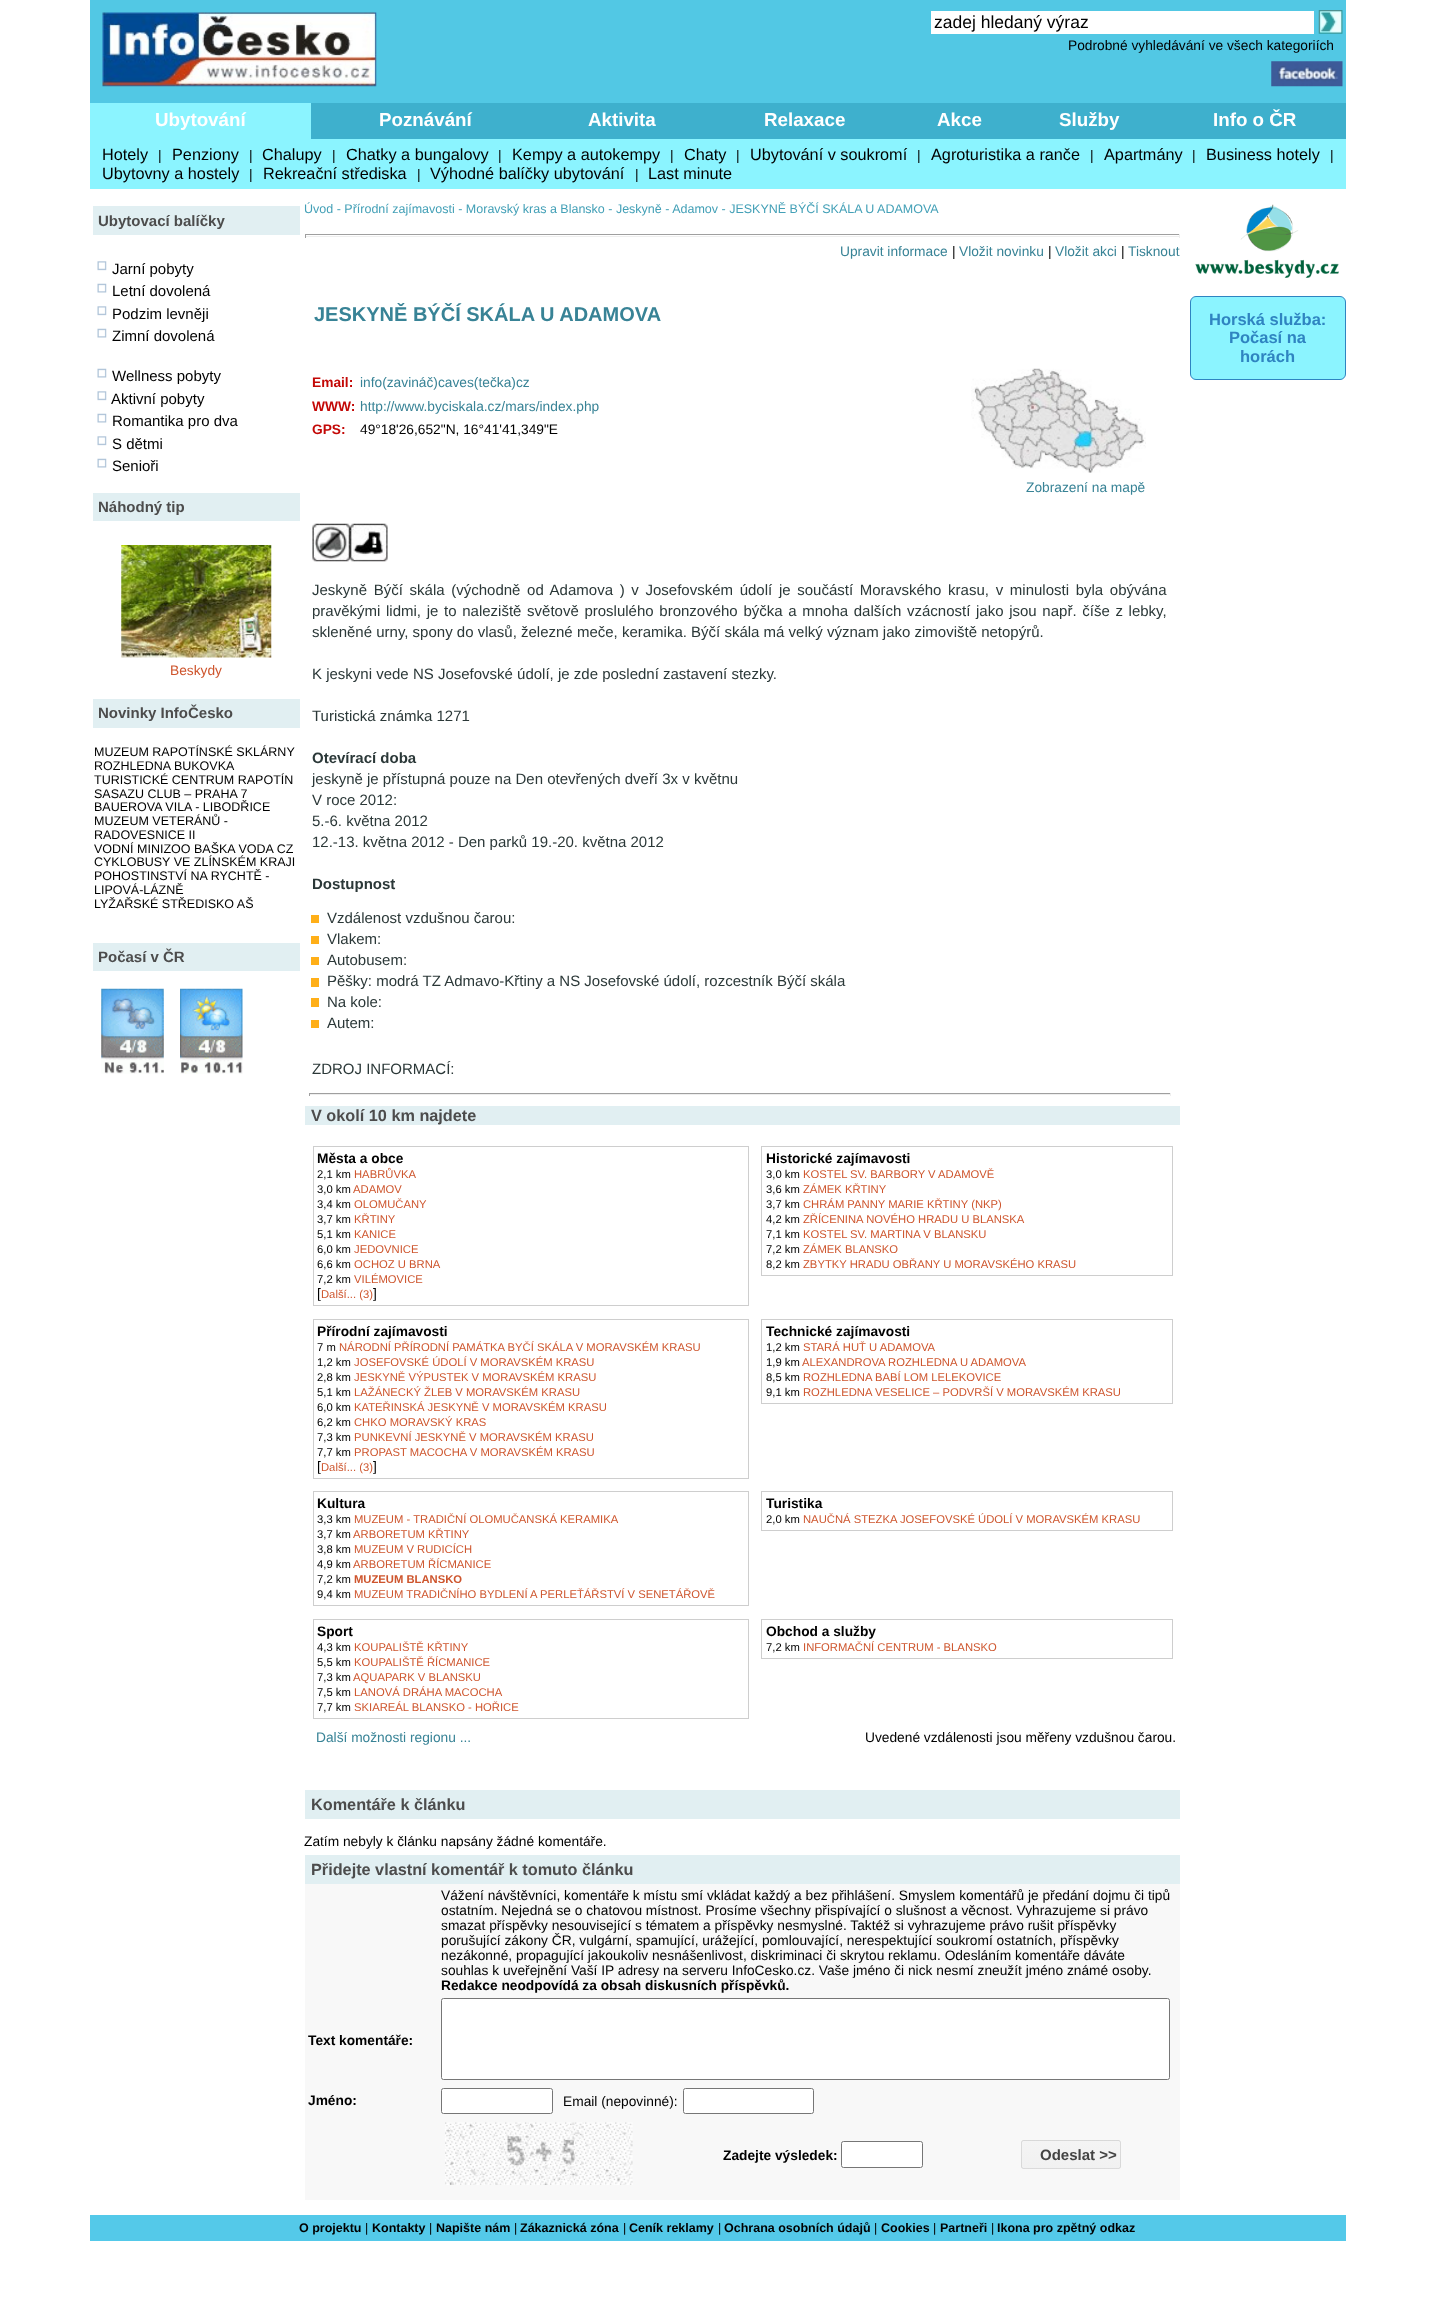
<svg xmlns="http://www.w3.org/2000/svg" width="1434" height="2299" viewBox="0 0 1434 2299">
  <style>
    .t1 { font: 17.5px Liberation Sans; fill: #000; }
    .t2 { font: 13.75px Liberation Sans; fill: #000; }
    .t3 { font: bold 18.75px Liberation Sans; fill: #fff; }
    .t4 { font: 16.25px Liberation Sans; fill: #000; }
    .t5 { font: bold 15px Liberation Sans; fill: #4c4c4c; }
    .t6 { font: 15px Liberation Sans; fill: #000; }
    .t7 { font: 13.75px Liberation Sans; fill: #ce552d; }
    .t8 { font: 12.5px Liberation Sans; fill: #000; }
    .t9 { font: 12.5px Liberation Sans; fill: #43a0b7; }
    .t10 { font: 13.75px Liberation Sans; fill: #388396; }
    .t11 { font: bold 20px Liberation Sans; fill: #388396; }
    .t12 { font: bold 13.75px Liberation Sans; fill: #c30806; }
    .t13 { font: 15px Liberation Sans; fill: #2b3838; }
    .t14 { font: bold 15px Liberation Sans; fill: #2b3838; }
    .t15 { font: bold 16.25px Liberation Sans; fill: #4c4c4c; }
    .t16 { font: bold 13.75px Liberation Sans; fill: #000; }
    .t17 { font: 11.25px Liberation Sans; fill: #000; }
    .t18 { font: 11.25px Liberation Sans; fill: #ce552d; }
    .t19 { font: bold 11.25px Liberation Sans; fill: #ce552d; }
    .t20 { font: bold 15px Liberation Sans; fill: #444; }
    .t21 { font: bold 16.5px Liberation Sans; fill: #2f84c1; }
    .t22 { font: bold 12.5px Liberation Sans; fill: #000; }
  </style>
  <defs>
    <clipPath id="clip1"><rect x="1021" y="2140" width="100" height="29" rx="2.5"/></clipPath>
    <linearGradient id="g1" gradientUnits="userSpaceOnUse" x1="1071" y1="2115" x2="1071" y2="2141"><stop offset="0" stop-color="#f4f4f4"/><stop offset="1" stop-color="#f1f1f1"/></linearGradient>
    <linearGradient id="g2" gradientUnits="userSpaceOnUse" x1="1071" y1="2141" x2="1071" y2="2168"><stop offset="0" stop-color="#f4f4f4"/><stop offset="1" stop-color="#f1f1f1"/></linearGradient>
    <linearGradient id="g3" gradientUnits="userSpaceOnUse" x1="1071" y1="2168" x2="1071" y2="2194"><stop offset="0" stop-color="#f4f4f4"/><stop offset="1" stop-color="#f1f1f1"/></linearGradient>
  </defs>
  <rect width="100%" height="100%" fill="#fff"/>
  <rect x="90" y="0" width="1256" height="103" fill="#52c8e4"/>
  <image x="102" y="12" width="275" height="75" href="images/1.png"/>
  <rect x="931" y="11" width="383" height="23" fill="#fff"/>
  <text x="934" y="28" class="t1">zadej hledaný výraz</text>
  <image x="1318" y="10" width="25" height="24" href="images/2.png"/>
  <text x="1068" y="50" class="t2">Podrobné vyhledávání ve všech kategoriích</text>
  <image x="1271" y="61" width="72" height="26" href="images/3.png"/>
  <rect x="90" y="103" width="221" height="36" fill="#8bf4ff"/>
  <text x="155" y="126" class="t3">Ubytování</text>
  <rect x="311" y="103" width="1035" height="36" fill="#3eb0cd"/>
  <text x="379" y="126" class="t3">Poznávání</text>
  <text x="588" y="126" class="t3">Aktivita</text>
  <text x="764" y="126" class="t3">Relaxace</text>
  <text x="937" y="126" class="t3">Akce</text>
  <text x="1059" y="126" class="t3">Služby</text>
  <text x="1213" y="126" class="t3">Info o ČR</text>
  <rect x="90" y="139" width="1256" height="50" fill="#8bf4ff"/>
  <text x="102" y="160" class="t4">Hotely</text>
  <text x="158" y="160" class="t2">|</text>
  <text x="172" y="160" class="t4">Penziony</text>
  <text x="249" y="160" class="t2">|</text>
  <text x="262" y="160" class="t4">Chalupy</text>
  <text x="332" y="160" class="t2">|</text>
  <text x="346" y="160" class="t4">Chatky a bungalovy</text>
  <text x="498" y="160" class="t2">|</text>
  <text x="512" y="160" class="t4">Kempy a autokempy</text>
  <text x="670" y="160" class="t2">|</text>
  <text x="684" y="160" class="t4">Chaty</text>
  <text x="736" y="160" class="t2">|</text>
  <text x="750" y="160" class="t4">Ubytování v soukromí</text>
  <text x="917" y="160" class="t2">|</text>
  <text x="931" y="160" class="t4">Agroturistika a ranče</text>
  <text x="1090" y="160" class="t2">|</text>
  <text x="1104" y="160" class="t4">Apartmány</text>
  <text x="1192" y="160" class="t2">|</text>
  <text x="1206" y="160" class="t4">Business hotely</text>
  <text x="1330" y="160" class="t2">|</text>
  <text x="102" y="179" class="t4">Ubytovny a hostely</text>
  <text x="249" y="179" class="t2">|</text>
  <text x="263" y="179" class="t4">Rekreační střediska</text>
  <text x="417" y="179" class="t2">|</text>
  <text x="430" y="179" class="t4">Výhodné balíčky ubytování</text>
  <text x="635" y="179" class="t2">|</text>
  <text x="648" y="179" class="t4">Last minute</text>
  <rect x="93" y="206" width="207" height="29" fill="#e1eff2"/>
  <text x="98" y="226" class="t5">Ubytovací balíčky</text>
  <image x="97" y="261" width="10" height="10" href="images/4.png"/>
  <text x="112" y="274" class="t6">Jarní pobyty</text>
  <image x="97" y="283" width="10" height="10" href="images/5.png"/>
  <text x="112" y="296" class="t6">Letní dovolená</text>
  <image x="97" y="306" width="10" height="10" href="images/4.png"/>
  <text x="112" y="319" class="t6">Podzim levněji</text>
  <image x="97" y="328" width="10" height="10" href="images/5.png"/>
  <text x="112" y="341" class="t6">Zimní dovolená</text>
  <image x="97" y="368" width="10" height="10" href="images/5.png"/>
  <text x="112" y="381" class="t6">Wellness pobyty</text>
  <image x="97" y="391" width="10" height="10" href="images/4.png"/>
  <text x="111" y="404" class="t6">Aktivní pobyty</text>
  <image x="97" y="413" width="10" height="10" href="images/5.png"/>
  <text x="112" y="426" class="t6">Romantika pro dva</text>
  <image x="97" y="436" width="10" height="10" href="images/4.png"/>
  <text x="112" y="449" class="t6">S dětmi</text>
  <image x="97" y="458" width="10" height="10" href="images/5.png"/>
  <text x="112" y="471" class="t6">Senioři</text>
  <rect x="93" y="493" width="207" height="28" fill="#e1eff2"/>
  <text x="98" y="512" class="t5">Náhodný tip</text>
  <image x="121" y="545" width="151" height="113" href="images/6.png"/>
  <text x="170" y="675" class="t7">Beskydy</text>
  <rect x="93" y="699" width="207" height="29" fill="#e1eff2"/>
  <text x="98" y="718" class="t5">Novinky InfoČesko</text>
  <text x="94" y="756" class="t8">MUZEUM RAPOTÍNSKÉ SKLÁRNY</text>
  <text x="94" y="770" class="t8">ROZHLEDNA BUKOVKA</text>
  <text x="94" y="784" class="t8">TURISTICKÉ CENTRUM RAPOTÍN</text>
  <text x="94" y="798" class="t8">SASAZU CLUB – PRAHA 7</text>
  <text x="94" y="811" class="t8">BAUEROVA VILA - LIBODŘICE</text>
  <text x="94" y="825" class="t8">MUZEUM VETERÁNŮ -</text>
  <text x="94" y="839" class="t8">RADOVESNICE II</text>
  <text x="94" y="853" class="t8">VODNÍ MINIZOO BAŠKA VODA CZ</text>
  <text x="94" y="866" class="t8">CYKLOBUSY VE ZLÍNSKÉM KRAJI</text>
  <text x="94" y="880" class="t8">POHOSTINSTVÍ NA RYCHTĚ -</text>
  <text x="94" y="894" class="t8">LIPOVÁ-LÁZNĚ</text>
  <text x="94" y="908" class="t8">LYŽAŘSKÉ STŘEDISKO AŠ</text>
  <rect x="93" y="943" width="207" height="28" fill="#e1eff2"/>
  <text x="98" y="962" class="t5">Počasí v ČR</text>
  <image x="101" y="988" width="63" height="86" href="images/7.png"/>
  <image x="180" y="988" width="63" height="86" href="images/8.png"/>
  <text x="304" y="213" class="t9">Úvod - Přírodní zajímavosti - Moravský kras a Blansko - Jeskyně - Adamov - JESKYNĚ BÝČÍ SKÁLA U ADAMOVA</text>
  <rect x="305" y="234" width="875" height="1" fill="#9f9f9f"/>
  <rect x="1179" y="234" width="1" height="4" fill="#eee"/>
  <rect x="305" y="236" width="875" height="1" fill="#eee"/>
  <rect x="305" y="234" width="1" height="4" fill="#9f9f9f"/>
  <text x="840" y="256" class="t10">Upravit informace</text>
  <text x="952" y="256" class="t2">|</text>
  <text x="959" y="256" class="t10">Vložit novinku</text>
  <text x="1048" y="256" class="t2">|</text>
  <text x="1055" y="256" class="t10">Vložit akci</text>
  <text x="1121" y="256" class="t2">|</text>
  <text x="1128" y="256" class="t10">Tisknout</text>
  <text x="314" y="321" class="t11">JESKYNĚ BÝČÍ SKÁLA U ADAMOVA</text>
  <text x="312" y="387" class="t12">Email:</text>
  <text x="360" y="387" class="t10">info(zavináč)caves(tečka)cz</text>
  <text x="312" y="411" class="t12">WWW:</text>
  <text x="360" y="411" class="t10">http://www.byciskala.cz/mars/index.php</text>
  <text x="312" y="434" class="t12">GPS:</text>
  <text x="360" y="434" class="t2">49°18'26,652"N, 16°41'41,349"E</text>
  <image x="971" y="368" width="175" height="105" href="images/9.png"/>
  <text x="1026" y="492" class="t10">Zobrazení na mapě</text>
  <image x="312" y="523" width="38" height="39" href="images/10.png"/>
  <image x="350" y="523" width="38" height="39" href="images/11.png"/>
  <text x="312" y="595" word-spacing="2.5" class="t13">Jeskyně Býčí skála (východně od Adamova ) v Josefovském údolí je součástí Moravského krasu, v minulosti byla obývána</text>
  <text x="312" y="616" word-spacing="1.5" class="t13">pravěkými lidmi, je to naleziště světově proslulého bronzového býčka a mnoha dalších vzácností jako jsou např. číše z lebky,</text>
  <text x="312" y="637" class="t13">skleněné urny, spony do vlasů, železné meče, keramika. Býčí skála má velký význam jako zimoviště netopýrů.</text>
  <text x="312" y="679" class="t13">K jeskyni vede NS Josefovské údolí, je zde poslední zastavení stezky.</text>
  <text x="312" y="721" class="t13">Turistická známka 1271</text>
  <text x="312" y="763" class="t14">Otevírací doba</text>
  <text x="312" y="784" class="t13">jeskyně je přístupná pouze na Den otevřených dveří 3x v květnu</text>
  <text x="312" y="805" class="t13">V roce 2012:</text>
  <text x="312" y="826" class="t13">5.-6. května 2012</text>
  <text x="312" y="847" class="t13">12.-13. května 2012 - Den parků 19.-20. května 2012</text>
  <text x="312" y="889" class="t14">Dostupnost</text>
  <rect x="311" y="915" width="8" height="8" fill="#ffaf18"/>
  <text x="327" y="923" class="t13">Vzdálenost vzdušnou čarou:</text>
  <rect x="311" y="936" width="8" height="8" fill="#ffaf18"/>
  <text x="327" y="944" class="t13">Vlakem:</text>
  <rect x="311" y="957" width="8" height="8" fill="#ffaf18"/>
  <text x="327" y="965" class="t13">Autobusem:</text>
  <rect x="311" y="978" width="8" height="9" fill="#ffaf18"/>
  <text x="327" y="986" class="t13">Pěšky: modrá TZ Admavo-Křtiny a NS Josefovské údolí, rozcestník Býčí skála</text>
  <rect x="311" y="998" width="8" height="9" fill="#ffaf18"/>
  <text x="327" y="1007" class="t13">Na kole:</text>
  <rect x="311" y="1020" width="8" height="8" fill="#ffaf18"/>
  <text x="327" y="1028" class="t13">Autem:</text>
  <text x="312" y="1074" class="t13">ZDROJ INFORMACÍ:</text>
  <rect x="309" y="1093" width="862" height="1" fill="#9f9f9f"/>
  <rect x="1170" y="1093" width="1" height="3" fill="#eee"/>
  <rect x="309" y="1094" width="862" height="1" fill="#eee"/>
  <rect x="309" y="1093" width="1" height="3" fill="#9f9f9f"/>
  <rect x="305" y="1106" width="875" height="19" fill="#e1eff2"/>
  <text x="311" y="1121" class="t15">V okolí 10 km najdete</text>
  <rect x="313.5" y="1146.5" width="435" height="159" fill="none" stroke="#cecece"/>
  <text x="317" y="1163" class="t16">Města a obce</text>
  <text x="317" y="1178" class="t17">2,1 km</text>
  <text x="354" y="1178" class="t18">HABRŮVKA</text>
  <text x="317" y="1193" class="t17">3,0 km</text>
  <text x="353" y="1193" class="t18">ADAMOV</text>
  <text x="317" y="1208" class="t17">3,4 km</text>
  <text x="354" y="1208" class="t18">OLOMUČANY</text>
  <text x="317" y="1223" class="t17">3,7 km</text>
  <text x="354" y="1223" class="t18">KŘTINY</text>
  <text x="317" y="1238" class="t17">5,1 km</text>
  <text x="354" y="1238" class="t18">KANICE</text>
  <text x="317" y="1253" class="t17">6,0 km</text>
  <text x="354" y="1253" class="t18">JEDOVNICE</text>
  <text x="317" y="1268" class="t17">6,6 km</text>
  <text x="354" y="1268" class="t18">OCHOZ U BRNA</text>
  <text x="317" y="1283" class="t17">7,2 km</text>
  <text x="354" y="1283" class="t18">VILÉMOVICE</text>
  <text x="317" y="1298" class="t2">[</text>
  <text x="321" y="1298" class="t18">Další... (3)</text>
  <text x="373" y="1298" class="t2">]</text>
  <rect x="761.5" y="1146.5" width="411" height="129" fill="none" stroke="#cecece"/>
  <text x="766" y="1163" class="t16">Historické zajímavosti</text>
  <text x="766" y="1178" class="t17">3,0 km</text>
  <text x="803" y="1178" class="t18">KOSTEL SV. BARBORY V ADAMOVĚ</text>
  <text x="766" y="1193" class="t17">3,6 km</text>
  <text x="803" y="1193" class="t18">ZÁMEK KŘTINY</text>
  <text x="766" y="1208" class="t17">3,7 km</text>
  <text x="803" y="1208" class="t18">CHRÁM PANNY MARIE KŘTINY (NKP)</text>
  <text x="766" y="1223" class="t17">4,2 km</text>
  <text x="803" y="1223" class="t18">ZŘÍCENINA NOVÉHO HRADU U BLANSKA</text>
  <text x="766" y="1238" class="t17">7,1 km</text>
  <text x="803" y="1238" class="t18">KOSTEL SV. MARTINA V BLANSKU</text>
  <text x="766" y="1253" class="t17">7,2 km</text>
  <text x="803" y="1253" class="t18">ZÁMEK BLANSKO</text>
  <text x="766" y="1268" class="t17">8,2 km</text>
  <text x="803" y="1268" class="t18">ZBYTKY HRADU OBŘANY U MORAVSKÉHO KRASU</text>
  <rect x="313.5" y="1319.5" width="435" height="159" fill="none" stroke="#cecece"/>
  <text x="317" y="1336" class="t16">Přírodní zajímavosti</text>
  <text x="317" y="1351" class="t17">7 m</text>
  <text x="339" y="1351" class="t18">NÁRODNÍ PŘÍRODNÍ PAMÁTKA BYČÍ SKÁLA V MORAVSKÉM KRASU</text>
  <text x="317" y="1366" class="t17">1,2 km</text>
  <text x="354" y="1366" class="t18">JOSEFOVSKÉ ÚDOLÍ V MORAVSKÉM KRASU</text>
  <text x="317" y="1381" class="t17">2,8 km</text>
  <text x="354" y="1381" class="t18">JESKYNĚ VÝPUSTEK V MORAVSKÉM KRASU</text>
  <text x="317" y="1396" class="t17">5,1 km</text>
  <text x="354" y="1396" class="t18">LAŽÁNECKÝ ŽLEB V MORAVSKÉM KRASU</text>
  <text x="317" y="1411" class="t17">6,0 km</text>
  <text x="354" y="1411" class="t18">KATEŘINSKÁ JESKYNĚ V MORAVSKÉM KRASU</text>
  <text x="317" y="1426" class="t17">6,2 km</text>
  <text x="354" y="1426" class="t18">CHKO MORAVSKÝ KRAS</text>
  <text x="317" y="1441" class="t17">7,3 km</text>
  <text x="354" y="1441" class="t18">PUNKEVNÍ JESKYNĚ V MORAVSKÉM KRASU</text>
  <text x="317" y="1456" class="t17">7,7 km</text>
  <text x="354" y="1456" class="t18">PROPAST MACOCHA V MORAVSKÉM KRASU</text>
  <text x="317" y="1471" class="t2">[</text>
  <text x="321" y="1471" class="t18">Další... (3)</text>
  <text x="373" y="1471" class="t2">]</text>
  <rect x="761.5" y="1319.5" width="411" height="84" fill="none" stroke="#cecece"/>
  <text x="766" y="1336" class="t16">Technické zajímavosti</text>
  <text x="766" y="1351" class="t17">1,2 km</text>
  <text x="803" y="1351" class="t18">STARÁ HUŤ U ADAMOVA</text>
  <text x="766" y="1366" class="t17">1,9 km</text>
  <text x="802" y="1366" class="t18">ALEXANDROVA ROZHLEDNA U ADAMOVA</text>
  <text x="766" y="1381" class="t17">8,5 km</text>
  <text x="803" y="1381" class="t18">ROZHLEDNA BABÍ LOM LELEKOVICE</text>
  <text x="766" y="1396" class="t17">9,1 km</text>
  <text x="803" y="1396" class="t18">ROZHLEDNA VESELICE – PODVRŠÍ V MORAVSKÉM KRASU</text>
  <rect x="313.5" y="1491.5" width="435" height="114" fill="none" stroke="#cecece"/>
  <text x="317" y="1508" class="t16">Kultura</text>
  <text x="317" y="1523" class="t17">3,3 km</text>
  <text x="354" y="1523" class="t18">MUZEUM - TRADIČNÍ OLOMUČANSKÁ KERAMIKA</text>
  <text x="317" y="1538" class="t17">3,7 km</text>
  <text x="353" y="1538" class="t18">ARBORETUM KŘTINY</text>
  <text x="317" y="1553" class="t17">3,8 km</text>
  <text x="354" y="1553" class="t18">MUZEUM V RUDICÍCH</text>
  <text x="317" y="1568" class="t17">4,9 km</text>
  <text x="353" y="1568" class="t18">ARBORETUM ŘÍCMANICE</text>
  <text x="317" y="1583" class="t17">7,2 km</text>
  <text x="354" y="1583" class="t19">MUZEUM BLANSKO</text>
  <text x="317" y="1598" class="t17">9,4 km</text>
  <text x="354" y="1598" class="t18">MUZEUM TRADIČNÍHO BYDLENÍ A PERLEŤÁŘSTVÍ V SENETÁŘOVĚ</text>
  <rect x="761.5" y="1491.5" width="411" height="39" fill="none" stroke="#cecece"/>
  <text x="766" y="1508" class="t16">Turistika</text>
  <text x="766" y="1523" class="t17">2,0 km</text>
  <text x="803" y="1523" class="t18">NAUČNÁ STEZKA JOSEFOVSKÉ ÚDOLÍ V MORAVSKÉM KRASU</text>
  <rect x="313.5" y="1619.5" width="435" height="99" fill="none" stroke="#cecece"/>
  <text x="317" y="1636" class="t16">Sport</text>
  <text x="317" y="1651" class="t17">4,3 km</text>
  <text x="354" y="1651" class="t18">KOUPALIŠTĚ KŘTINY</text>
  <text x="317" y="1666" class="t17">5,5 km</text>
  <text x="354" y="1666" class="t18">KOUPALIŠTĚ ŘÍCMANICE</text>
  <text x="317" y="1681" class="t17">7,3 km</text>
  <text x="353" y="1681" class="t18">AQUAPARK V BLANSKU</text>
  <text x="317" y="1696" class="t17">7,5 km</text>
  <text x="354" y="1696" class="t18">LANOVÁ DRÁHA MACOCHA</text>
  <text x="317" y="1711" class="t17">7,7 km</text>
  <text x="354" y="1711" class="t18">SKIAREÁL BLANSKO - HOŘICE</text>
  <rect x="761.5" y="1619.5" width="411" height="39" fill="none" stroke="#cecece"/>
  <text x="766" y="1636" class="t16">Obchod a služby</text>
  <text x="766" y="1651" class="t17">7,2 km</text>
  <text x="803" y="1651" class="t18">INFORMAČNÍ CENTRUM - BLANSKO</text>
  <text x="316" y="1742" class="t10">Další možnosti regionu ...</text>
  <text x="865" y="1742" class="t2">Uvedené vzdálenosti jsou měřeny vzdušnou čarou.</text>
  <rect x="305" y="1790" width="875" height="29" fill="#e1eff2"/>
  <text x="311" y="1810" class="t15">Komentáře k článku</text>
  <text x="304" y="1846" class="t2">Zatím nebyly k článku napsány žádné komentáře.</text>
  <rect x="305" y="1855" width="875" height="29" fill="#e1eff2"/>
  <text x="311" y="1875" class="t15">Přidejte vlastní komentář k tomuto článku</text>
  <rect x="305" y="1884" width="875" height="316" fill="#f8f8f8"/>
  <text x="441" y="1900" class="t2">Vážení návštěvníci, komentáře k místu smí vkládat každý a bez přihlášení. Smyslem komentářů je předání dojmu či tipů</text>
  <text x="441" y="1915" class="t2">ostatním. Nejedná se o chatovou místnost. Prosíme všechny přispívající o slušnost a věcnost. Vyhrazujeme si právo</text>
  <text x="441" y="1930" class="t2">smazat příspěvky nesouvisející s tématem a příspěvky nesmyslné. Taktéž si vyhrazujeme právo rušit příspěvky</text>
  <text x="441" y="1945" class="t2">porušující zákony ČR, vulgární, spamující, urážející, pomlouvající, nerespektující soukromí ostatních, příspěvky</text>
  <text x="441" y="1960" class="t2">nezákonné, propagující jakoukoliv nesnášenlivost, diskriminaci či skrytou reklamu. Odesláním komentáře dáváte</text>
  <text x="441" y="1975" class="t2">souhlas k uveřejnění Vaší IP adresy na serveru InfoCesko.cz. Vaše jméno či nick nesmí zneužít jméno známé osoby.</text>
  <text x="441" y="1990" class="t16">Redakce neodpovídá za obsah diskusních příspěvků.</text>
  <text x="308" y="2045" class="t16">Text komentáře:</text>
  <rect x="441.5" y="1998.5" width="728" height="81" rx="2" fill="#fff" stroke="#767676"/>
  <text x="308" y="2105" class="t16">Jméno:</text>
  <rect x="441.5" y="2088.5" width="111" height="25" rx="2" fill="#fff" stroke="#767676"/>
  <text x="563" y="2106" class="t2">Email (nepovinné):</text>
  <rect x="683.5" y="2088.5" width="130" height="25" rx="2" fill="#fff" stroke="#767676"/>
  <image x="445" y="2122" width="188" height="63" href="images/12.png"/>
  <text x="723" y="2160" class="t16">Zadejte výsledek:</text>
  <rect x="841.5" y="2141.5" width="81" height="26" rx="2" fill="#fff" stroke="#767676"/>
  <g clip-path="url(#clip1)">
    <rect x="1021" y="2140" width="100" height="1" fill="url(#g1)"/>
    <rect x="1021" y="2141" width="100" height="27" fill="url(#g2)"/>
    <rect x="1021" y="2168" width="100" height="1" fill="url(#g3)"/>
  </g>
  <rect x="1021.5" y="2140.5" width="99" height="28" rx="2" fill="none" stroke="#0000001a"/>
  <text x="1040" y="2160" class="t20">Odeslat &gt;&gt;</text>
  <image x="1195" y="204" width="144" height="74" href="images/13.png"/>
  <rect x="1190.5" y="296.5" width="155" height="83" rx="5.5" fill="#8bf4ff" stroke="#2f84c1"/>
  <text x="1209" y="325" class="t21">Horská služba:</text>
  <text x="1229" y="343" class="t21">Počasí na</text>
  <text x="1240" y="362" class="t21">horách</text>
  <rect x="90" y="2215" width="1256" height="26" fill="#54c9e9"/>
  <text x="299" y="2232" class="t22">O projektu</text>
  <text x="365" y="2232" class="t8">|</text>
  <text x="372" y="2232" class="t22">Kontakty</text>
  <text x="429" y="2232" class="t8">|</text>
  <text x="436" y="2232" class="t22">Napište nám</text>
  <text x="514" y="2232" class="t8">|</text>
  <text x="520" y="2232" class="t22">Zákaznická zóna</text>
  <text x="623" y="2232" class="t8">|</text>
  <text x="629" y="2232" class="t22">Ceník reklamy</text>
  <text x="718" y="2232" class="t8">|</text>
  <text x="724" y="2232" class="t22">Ochrana osobních údajů</text>
  <text x="874" y="2232" class="t8">|</text>
  <text x="881" y="2232" class="t22">Cookies</text>
  <text x="933" y="2232" class="t8">|</text>
  <text x="940" y="2232" class="t22">Partneři</text>
  <text x="991" y="2232" class="t8">|</text>
  <text x="997" y="2232" class="t22">Ikona pro zpětný odkaz</text>
</svg>
